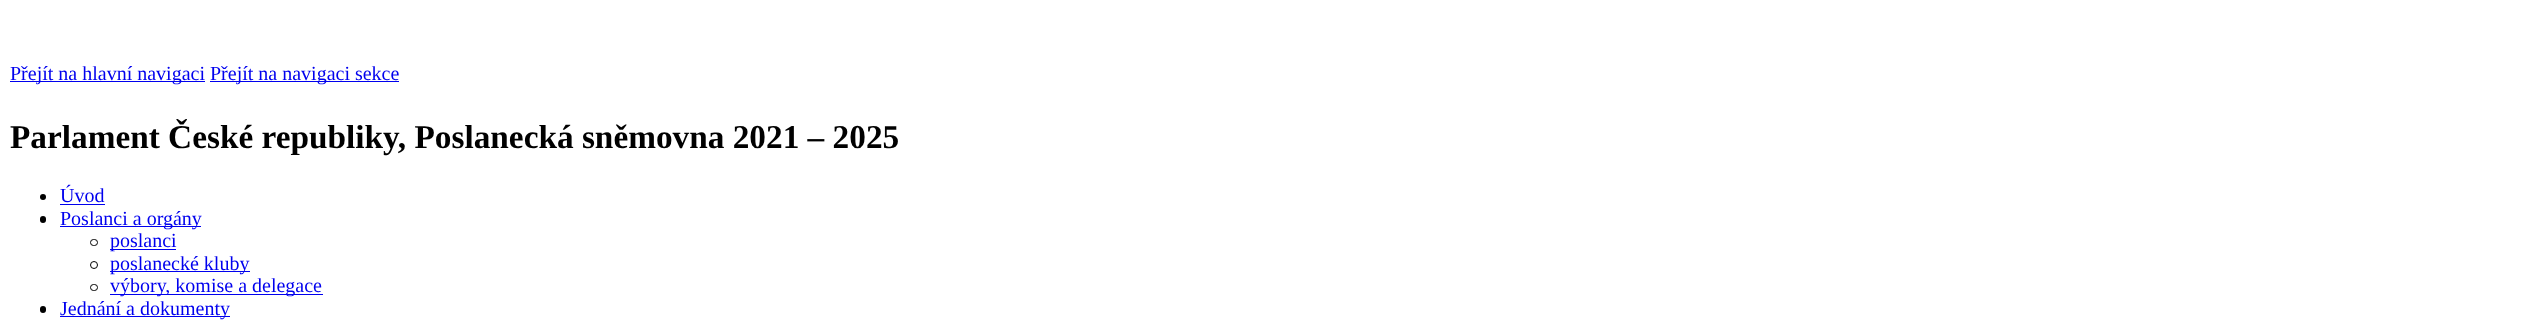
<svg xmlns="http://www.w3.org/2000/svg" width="2538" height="329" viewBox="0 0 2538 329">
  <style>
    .t1 { font: 20px Liberation Serif; fill: #00e; }
    .t2 { font: bold 33.3px Liberation Serif; fill: #000; }
  </style>
  <rect width="100%" height="100%" fill="#fff"/>
  <rect x="10" y="81" width="195" height="1" fill="#00e"/>
  <text x="10" y="80" class="t1">Přejít na hlavní navigaci</text>
  <rect x="210" y="81" width="189" height="1" fill="#00e"/>
  <text x="210" y="80" class="t1">Přejít na navigaci sekce</text>
  <text x="10" y="148" class="t2">Parlament České republiky, Poslanecká sněmovna 2021 – 2025</text>
  <circle cx="43" cy="197" r="3" fill="#000"/>
  <text x="60" y="202" class="t1">Úvod</text>
  <rect x="60" y="204" width="45" height="1" fill="#00e"/>
  <rect x="40" y="216" width="6" height="7" rx="3" fill="#000"/>
  <rect x="60" y="226" width="141" height="1" fill="#00e"/>
  <text x="60" y="225" class="t1">Poslanci a orgány</text>
  <rect x="90.5" y="239.5" width="7" height="6" rx="3" fill="none" stroke="#000"/>
  <rect x="110" y="249" width="66" height="1" fill="#00e"/>
  <text x="110" y="247" class="t1">poslanci</text>
  <circle cx="94" cy="265" r="3.5" fill="none" stroke="#000"/>
  <rect x="110" y="271" width="140" height="1" fill="#00e"/>
  <text x="110" y="270" class="t1">poslanecké kluby</text>
  <rect x="90.5" y="284.5" width="7" height="6" rx="3" fill="none" stroke="#000"/>
  <rect x="110" y="294" width="213" height="1" fill="#00e"/>
  <text x="110" y="292" class="t1">výbory, komise a delegace</text>
  <rect x="40" y="306" width="6" height="7" rx="3" fill="#000"/>
  <rect x="60" y="316" width="170" height="1" fill="#00e"/>
  <text x="60" y="315" class="t1">Jednání a dokumenty</text>
</svg>
